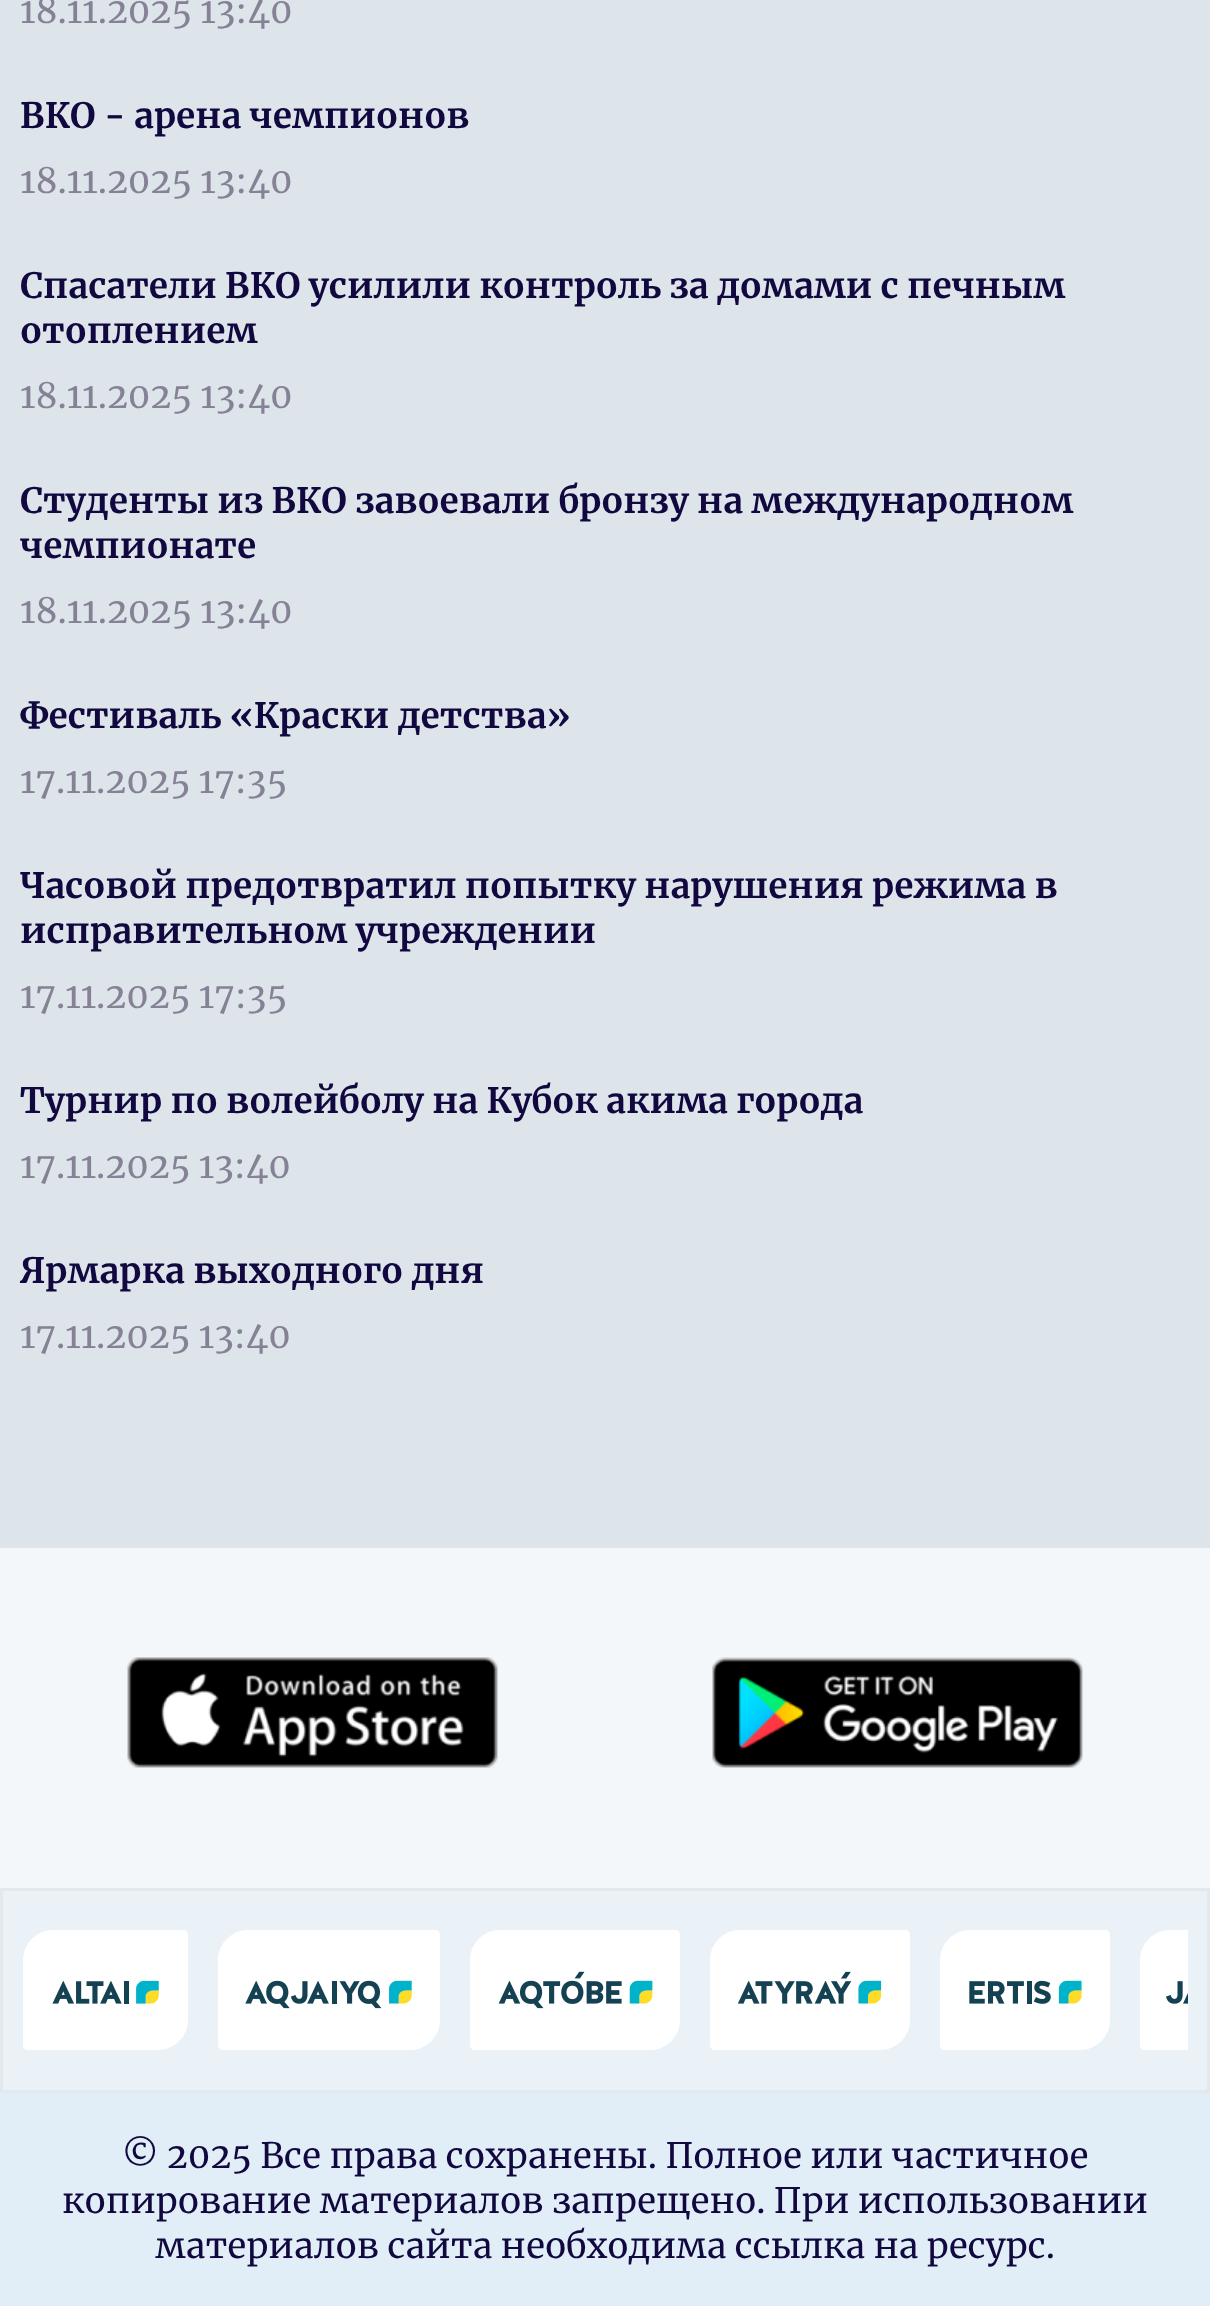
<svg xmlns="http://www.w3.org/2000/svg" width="1210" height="2306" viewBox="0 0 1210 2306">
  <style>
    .t1 { font: 35px Merriweather; fill: #858295; }
    .t2 { font: bold 35px Merriweather; fill: #10083f; }
    .t3 { font: 35px Merriweather; fill: #10083f; }
  </style>
  <rect width="100%" height="100%" fill="#dde4ea"/>
  <text x="20" y="23" class="t1">18.11.2025 13:40</text>
  <text x="20" y="128" class="t2">ВКО - арена чемпионов</text>
  <text x="20" y="193" class="t1">18.11.2025 13:40</text>
  <text x="20" y="298" class="t2">Спасатели ВКО усилили контроль за домами с печным</text>
  <text x="20" y="343" class="t2">отоплением</text>
  <text x="20" y="408" class="t1">18.11.2025 13:40</text>
  <text x="20" y="513" class="t2">Студенты из ВКО завоевали бронзу на международном</text>
  <text x="20" y="558" class="t2">чемпионате</text>
  <text x="20" y="623" class="t1">18.11.2025 13:40</text>
  <text x="20" y="728" class="t2">Фестиваль «Краски детства»</text>
  <text x="20" y="793" class="t1">17.11.2025 17:35</text>
  <text x="20" y="898" class="t2">Часовой предотвратил попытку нарушения режима в</text>
  <text x="20" y="943" class="t2">исправительном учреждении</text>
  <text x="20" y="1008" class="t1">17.11.2025 17:35</text>
  <text x="20" y="1113" class="t2">Турнир по волейболу на Кубок акима города</text>
  <text x="20" y="1178" class="t1">17.11.2025 13:40</text>
  <text x="20" y="1283" class="t2">Ярмарка выходного дня</text>
  <text x="20" y="1348" class="t1">17.11.2025 13:40</text>
  <rect x="0" y="2093" width="1210" height="213" fill="#e1edf7"/>
  <rect x="0" y="1548" width="1210" height="340" fill="#f3f7fa"/>
  <image x="127" y="1657" width="371" height="111" href="images/1.png"/>
  <image x="712" y="1657" width="371" height="111" href="images/2.png"/>
  <rect x="1.5" y="1889.5" width="1207" height="202" fill="#eaf1f7" stroke="#e2e8ec" stroke-width="3"/>
  <path d="M53 1930H183C186 1930 188 1932 188 1935V2020C188 2036.5 174.5 2050 158 2050H28C25 2050 23 2048 23 2045V1960C23 1943.5 36.5 1930 53 1930Z" fill="#fff"/>
  <image x="52" y="1980" width="107" height="24" href="images/3.png"/>
  <path d="M248 1930H435C438 1930 440 1932 440 1935V2020C440 2036.5 426.5 2050 410 2050H223C220 2050 218 2048 218 2045V1960C218 1943.5 231.5 1930 248 1930Z" fill="#fff"/>
  <image x="245" y="1980" width="167" height="29" href="images/4.png"/>
  <path d="M500 1930H675C678 1930 680 1932 680 1935V2020C680 2036.5 666.5 2050 650 2050H475C472 2050 470 2048 470 2045V1960C470 1943.5 483.5 1930 500 1930Z" fill="#fff"/>
  <image x="498" y="1971" width="155" height="38" href="images/5.png"/>
  <path d="M740 1930H905C908 1930 910 1932 910 1935V2020C910 2036.5 896.5 2050 880 2050H715C712 2050 710 2048 710 2045V1960C710 1943.5 723.5 1930 740 1930Z" fill="#fff"/>
  <image x="737" y="1971" width="145" height="33" href="images/6.png"/>
  <path d="M970 1930H1105C1108 1930 1110 1932 1110 1935V2020C1110 2036.5 1096.5 2050 1080 2050H945C942 2050 940 2048 940 2045V1960C940 1943.5 953.5 1930 970 1930Z" fill="#fff"/>
  <image x="969" y="1980" width="113" height="24" href="images/7.png"/>
  <path d="M1170 1930H1188V2050H1145C1142 2050 1140 2048 1140 2045V1960C1140 1943.5 1153.5 1930 1170 1930Z" fill="#fff"/>
  <image x="1166" y="1981" width="22" height="23" href="images/8.png"/>
  <text x="122" y="2168" class="t3">© 2025 Все права сохранены. Полное или частичное</text>
  <text x="62" y="2213" class="t3">копирование материалов запрещено. При использовании</text>
  <text x="155" y="2258" class="t3">материалов сайта необходима ссылка на ресурс.</text>
</svg>
